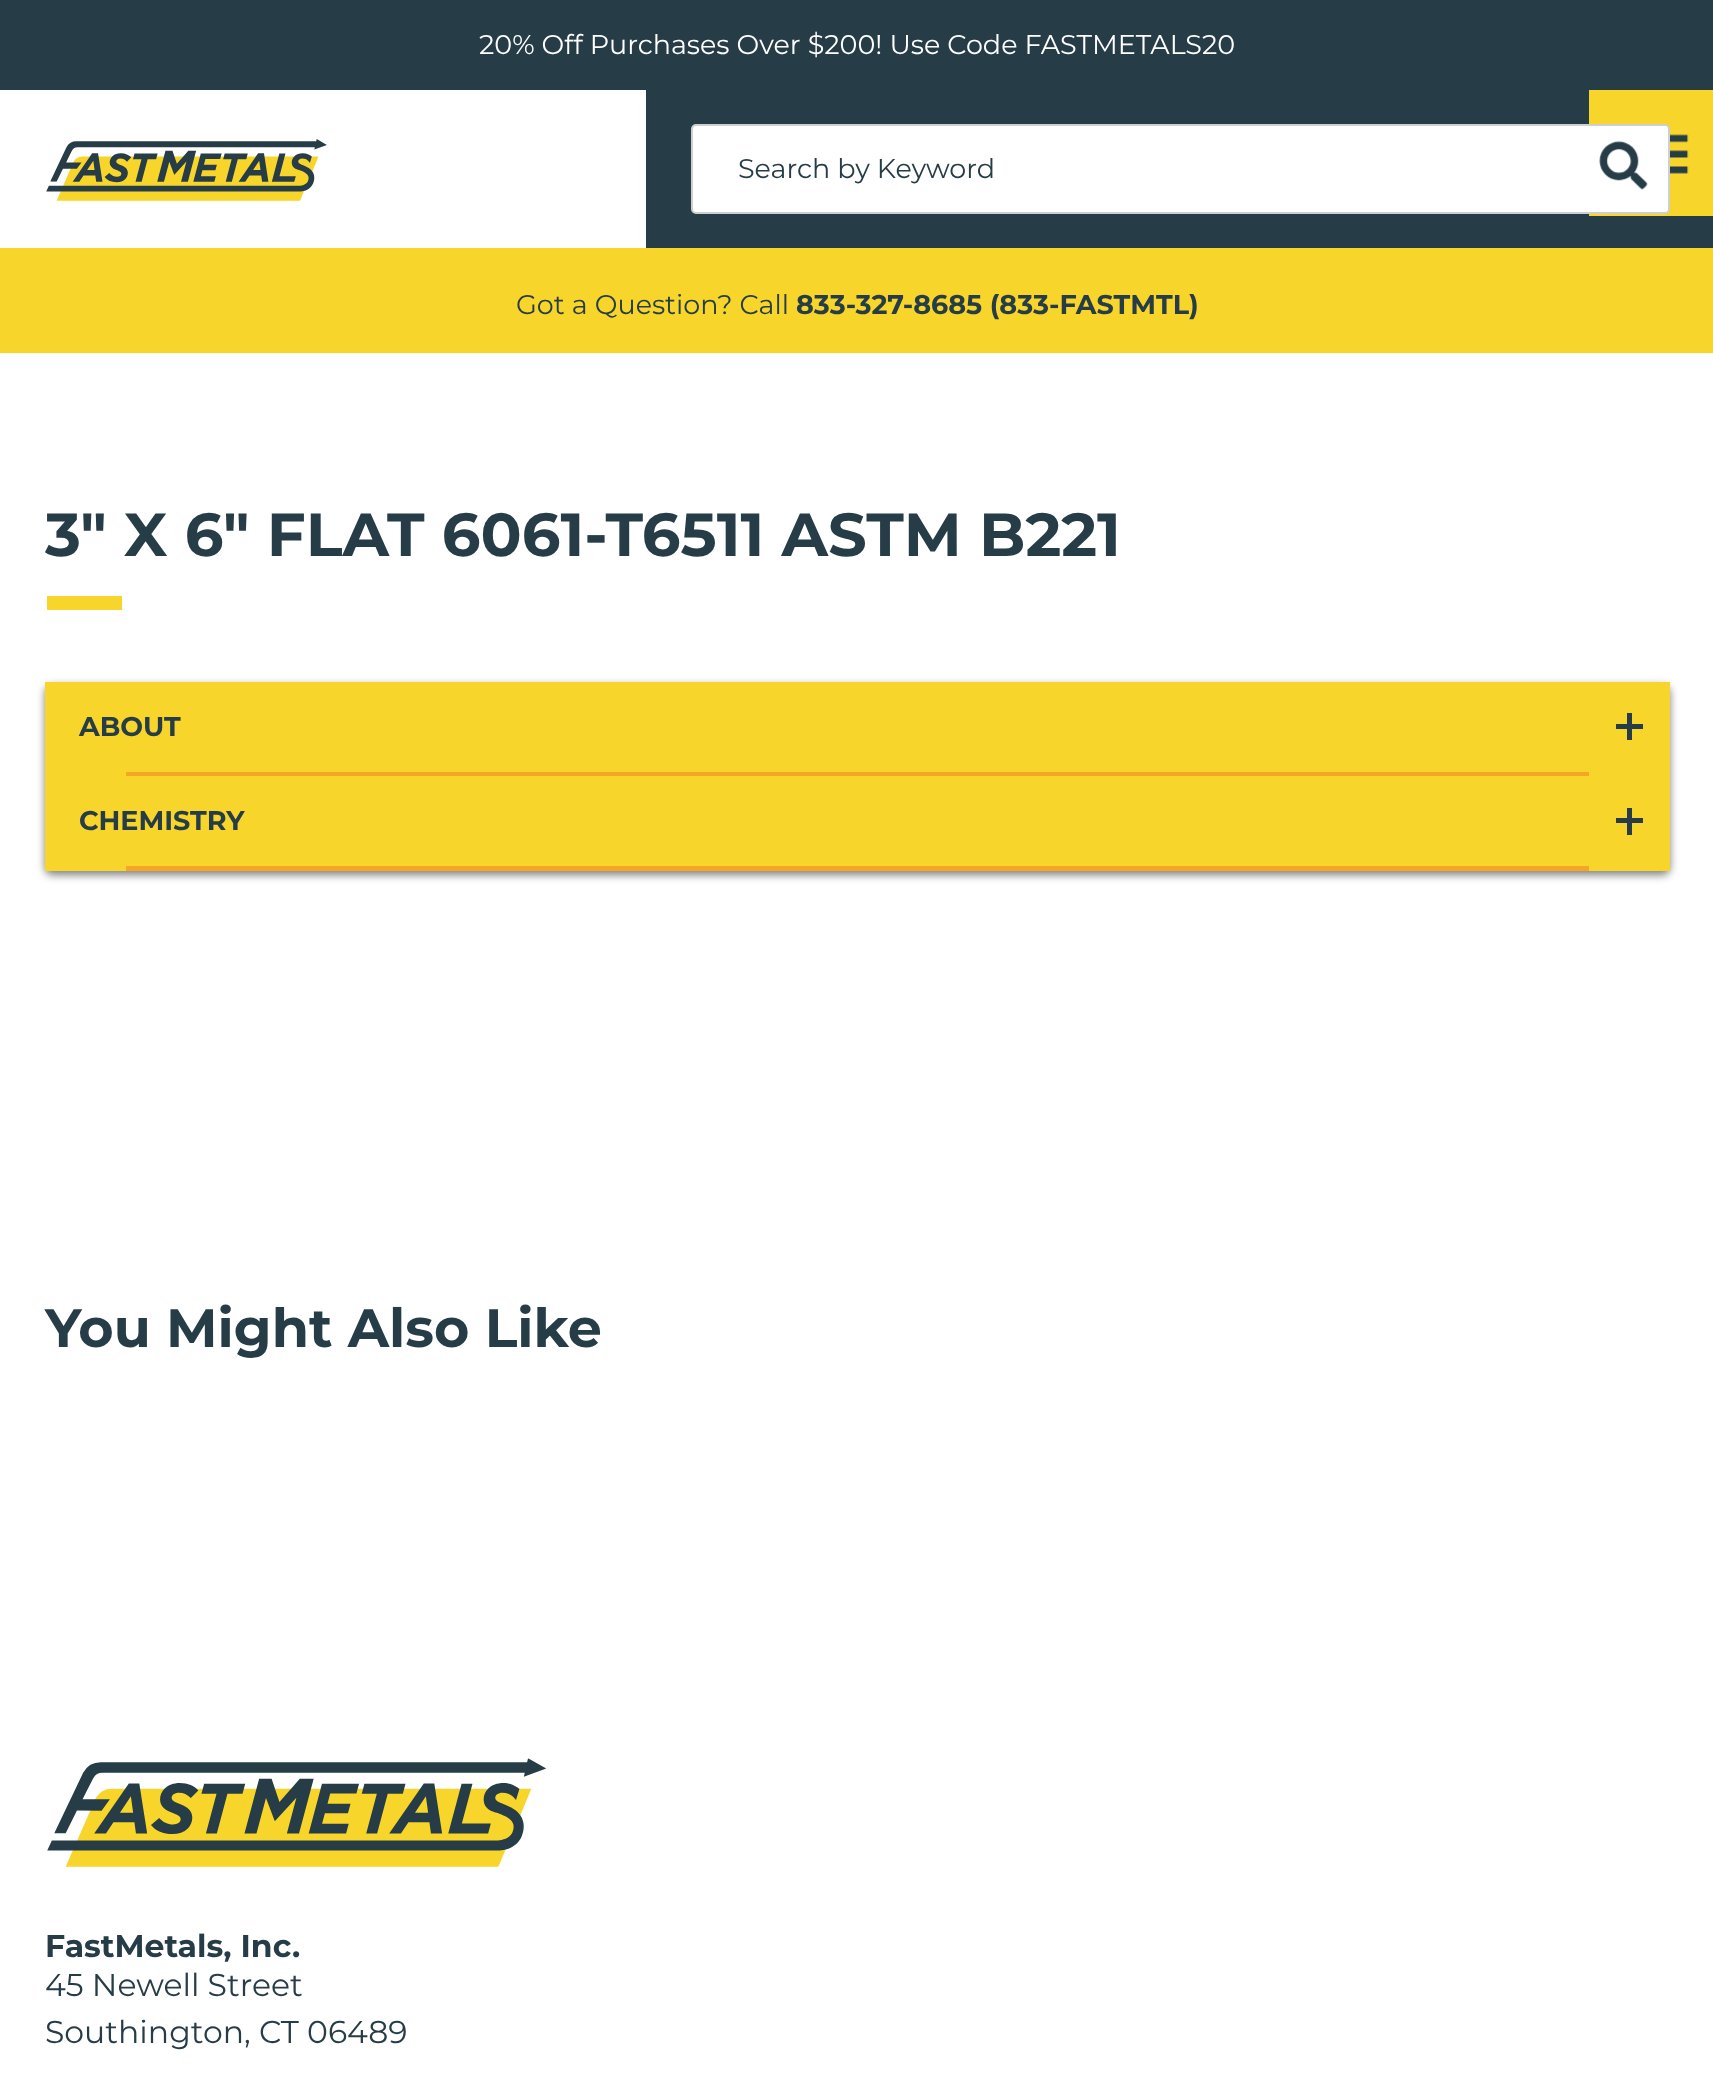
<svg xmlns="http://www.w3.org/2000/svg" width="1713" height="2074" viewBox="0 0 1713 2074">
  <style>
    .t1 { font: 27px Montserrat; fill: #fff; }
    .t2 { font: 27px Montserrat; fill: #263c46; }
    .t3 { font: bold 27px Montserrat; fill: #263c46; }
    .t4 { font: bold 60.75px Montserrat; fill: #263c46; }
    .t5 { font: bold 54px Montserrat; fill: #263c46; }
    .t6 { font: bold 31.5px Montserrat; fill: #263c46; }
    .t7 { font: 31.5px Montserrat; fill: #263c46; }
  </style>
  <rect width="100%" height="100%" fill="#fff"/>
  <rect x="0" y="0" width="1713" height="90" fill="#263c46"/>
  <text x="479" y="54" class="t1">20% Off Purchases Over $200! Use Code FASTMETALS20</text>
  <image x="46" y="139" width="281" height="62" href="images/1.png"/>
  <rect x="646" y="90" width="1067" height="158" fill="#263c46"/>
  <rect x="1589" y="90" width="124" height="126" fill="#f8d52a"/>
  <rect x="692" y="125" width="977" height="88" rx="4" fill="#fff" stroke="#cfcfcf" stroke-width="2"/>
  <text x="738" y="178" class="t2">Search by Keyword</text>
  <image x="1599" y="141" width="49" height="49" href="images/2.png"/>
  <image x="1670" y="134" width="19" height="40" href="images/3.png"/>
  <rect x="0" y="248" width="1713" height="105" fill="#f8d52a"/>
  <text x="516" y="314" class="t2">Got a Question? Call</text>
  <text x="796" y="314" class="t3">833-327-8685 (833-FASTMTL)</text>
  <text x="45" y="556" class="t4">3" X 6" FLAT 6061-T6511 ASTM B221</text>
  <rect x="47" y="596" width="75" height="14" fill="#f8d52a"/>
  <rect x="45" y="686" width="1625" height="189" rx="7" fill="#00000080" filter="blur(4.5px)"/>
  <rect x="45" y="682" width="1625" height="189" fill="#f8d52a"/>
  <text x="79" y="736" class="t3">ABOUT</text>
  <rect x="1627" y="713" width="5" height="27" fill="#263c46"/>
  <rect x="1616" y="724" width="27" height="5" fill="#263c46"/>
  <rect x="126" y="772" width="1463" height="4" fill="#f5a623"/>
  <text x="79" y="830" class="t3">CHEMISTRY</text>
  <rect x="1627" y="808" width="5" height="27" fill="#263c46"/>
  <rect x="1616" y="818" width="27" height="5" fill="#263c46"/>
  <rect x="126" y="866" width="1463" height="5" fill="#f5a623"/>
  <text x="45" y="1347" class="t5">You Might Also Like</text>
  <image x="47" y="1758" width="499" height="109" href="images/4.png"/>
  <text x="45" y="1957" class="t6">FastMetals, Inc.</text>
  <text x="45" y="1996" class="t7">45 Newell Street</text>
  <text x="45" y="2043" class="t7">Southington, CT 06489</text>
</svg>
